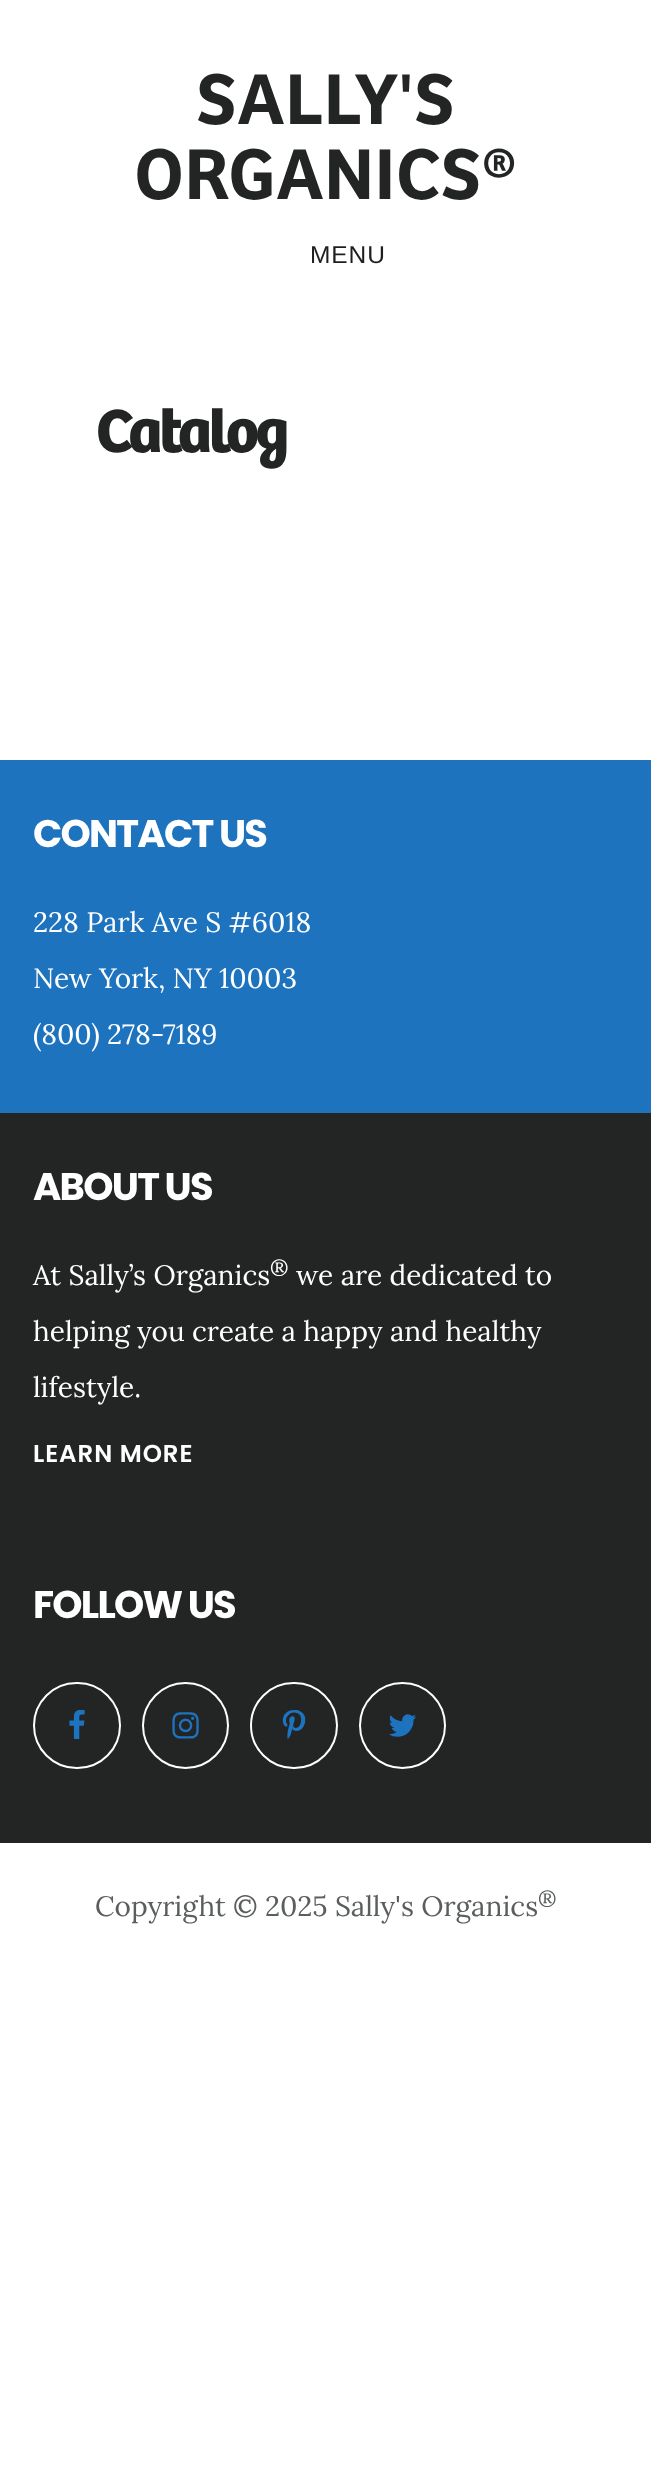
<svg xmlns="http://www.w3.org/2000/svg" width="651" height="2486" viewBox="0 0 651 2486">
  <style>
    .t1 { font: 600 74.5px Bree; fill: #232525; }
    .t2 { font: 24.5px Liberation Sans; letter-spacing: 0.9px; fill: #1e1e1e; }
    .t3 { font: bold 63px Bree; letter-spacing: -3.5px; fill: #232525; }
    .t4 { font: bold 38.5px Poppins; letter-spacing: -1.75px; fill: #fff; }
    .t5 { font: 28px Lora; fill: #fff; }
    .t6 { font: 21px Lora; fill: #fff; }
    .t7 { font: 600 24.5px Poppins; letter-spacing: 0.9px; fill: #fff; }
    .t8 { font: 28px Lora; fill: #5b5e5e; }
    .t9 { font: 21px Lora; fill: #5b5e5e; }
  </style>
  <rect width="100%" height="100%" fill="#fff"/>
  <text x="196" y="124" class="t1">SALLY'S</text>
  <text x="134" y="199" class="t1">ORGANICS®</text>
  <text x="310" y="263" class="t2">MENU</text>
  <text x="96" y="452" class="t3">Catalog</text>
  <rect x="0" y="1113" width="651" height="730" fill="#232525"/>
  <rect x="0" y="760" width="651" height="353" fill="#1e73be"/>
  <text x="33" y="847" class="t4">CONTACT US</text>
  <text x="33" y="932" class="t5">228 Park Ave S #6018</text>
  <text x="33" y="988" class="t5">New York, NY 10003</text>
  <text x="33" y="1044" class="t5">(800) 278-7189</text>
  <text x="33" y="1200" class="t4">ABOUT US</text>
  <text x="33" y="1285" class="t5">At Sally’s Organics</text>
  <text x="270" y="1275" class="t6">®</text>
  <text x="296" y="1285" class="t5">we are dedicated to</text>
  <text x="33" y="1341" class="t5">helping you create a happy and healthy</text>
  <text x="33" y="1397" class="t5">lifestyle.</text>
  <text x="33" y="1462" class="t7">LEARN MORE</text>
  <text x="33" y="1618" class="t4">FOLLOW US</text>
  <rect x="34" y="1683" width="86" height="85" rx="42.5" fill="none" stroke="#fff" stroke-width="2"/>
  <image x="69" y="1710" width="16" height="29" href="images/1.png"/>
  <circle cx="185.5" cy="1725.5" r="42.5" fill="none" stroke="#fff" stroke-width="2"/>
  <image x="172" y="1712" width="27" height="27" href="images/2.png"/>
  <rect x="251" y="1683" width="86" height="85" rx="42.5" fill="none" stroke="#fff" stroke-width="2"/>
  <image x="282" y="1710" width="24" height="29" href="images/3.png"/>
  <circle cx="402.5" cy="1725.5" r="42.5" fill="none" stroke="#fff" stroke-width="2"/>
  <image x="389" y="1714" width="28" height="23" href="images/4.png"/>
  <text x="95" y="1916" class="t8">Copyright © 2025 Sally's Organics</text>
  <text x="538" y="1906" class="t9">®</text>
</svg>
